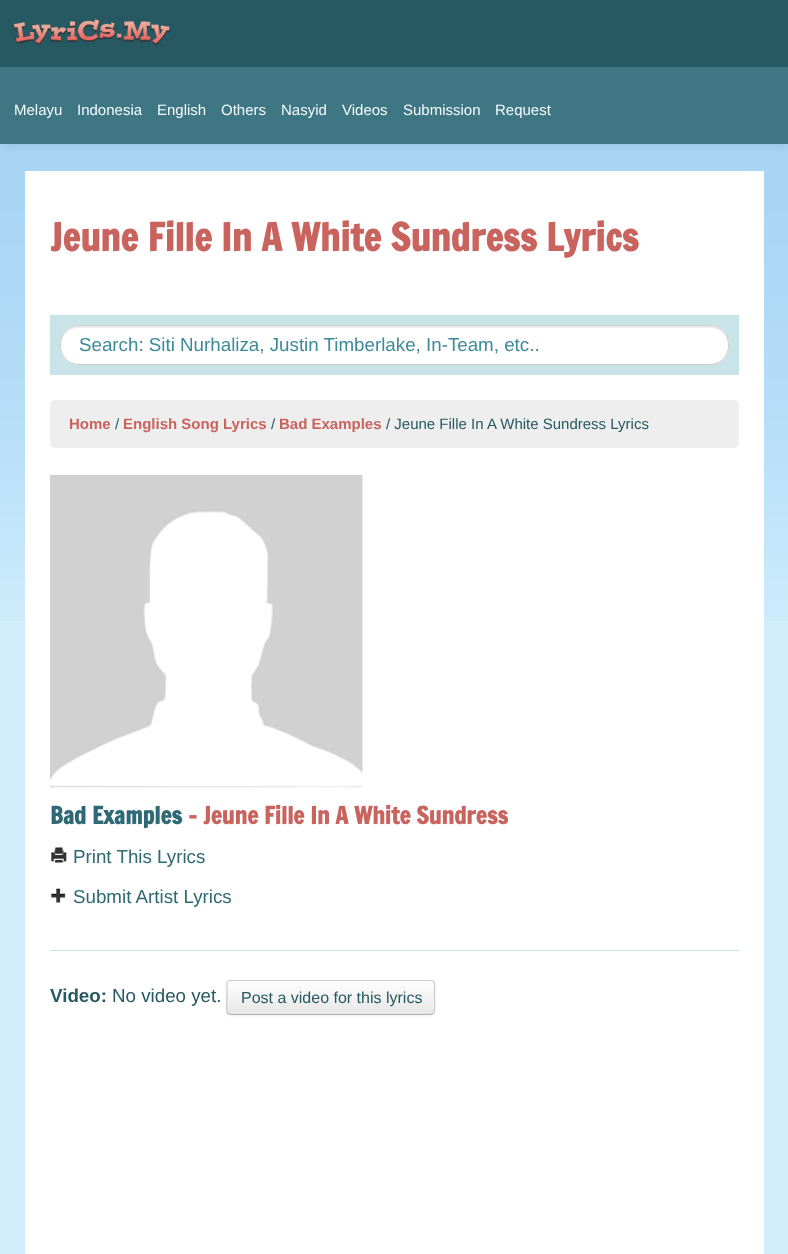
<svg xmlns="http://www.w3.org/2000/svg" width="788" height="1254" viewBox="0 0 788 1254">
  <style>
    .t1 { font: 15px Liberation Sans; fill: #f2faff; }
    .t2 { font: bold 37.5px Francois One; fill: #c9635e; }
    .t3 { font: 18.75px Liberation Sans; fill: #3c8a9a; }
    .t4 { font: bold 15px Liberation Sans; fill: #c9635e; }
    .t5 { font: 15px Liberation Sans; fill: #275963; }
    .t6 { font: bold 23.5px Francois One; fill: #2e6975; }
    .t7 { font: bold 23.5px Francois One; fill: #c9635e; }
    .t8 { font: 18.75px Liberation Sans; fill: #2e6975; }
    .t9 { font: bold 18.75px Liberation Sans; fill: #275963; }
    .t10 { font: 18.75px Liberation Sans; fill: #275963; }
    .t11 { font: 16px Liberation Sans; fill: #275963; }
  </style>
  <defs>
    <clipPath id="clip1"><rect x="226" y="980" width="209" height="35" rx="4"/></clipPath>
    <linearGradient id="g1" gradientUnits="userSpaceOnUse" x1="331" y1="981" x2="331" y2="1014"><stop offset="0" stop-color="#fff"/><stop offset="1" stop-color="#e6e6e6"/></linearGradient>
  </defs>
  <rect width="100%" height="100%" fill="#d2edfb"/>
  <image x="0" y="144" width="788" height="477" href="images/1.png"/>
  <rect x="0" y="1" width="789" height="144" fill="#0000001a" filter="blur(6px)"/>
  <rect x="0" y="67" width="788" height="77" fill="#3e7783"/>
  <rect x="0" y="0" width="788" height="67" fill="#275963"/>
  <image x="14" y="19" width="156" height="27" href="images/2.png"/>
  <text x="14" y="115" class="t1">Melayu</text>
  <text x="77" y="115" class="t1">Indonesia</text>
  <text x="157" y="115" class="t1">English</text>
  <text x="221" y="115" class="t1">Others</text>
  <text x="281" y="115" class="t1">Nasyid</text>
  <text x="342" y="115" class="t1">Videos</text>
  <text x="403" y="115" class="t1">Submission</text>
  <text x="495" y="115" class="t1">Request</text>
  <rect x="25" y="171" width="739" height="1083" fill="#fff"/>
  <text x="50" y="251" class="t2">Jeune Fille In A White Sundress Lyrics</text>
  <rect x="50" y="315" width="689" height="60" fill="#c8e4e9"/>
  <rect x="60" y="325" width="669" height="40" rx="19" fill="#fff"/>
  <path d="M79 328H710C720 328 728 335 728 345V344C728 334 720 326 710 326H79C69 326 61 334 61 344V345C61 335 69 328 79 328Z" fill="#ececec"/>
  <rect x="60.5" y="325.5" width="668" height="39" rx="18.5" fill="none" stroke="#ccc"/>
  <text x="79" y="351" class="t3">Search: Siti Nurhaliza, Justin Timberlake, In-Team, etc..</text>
  <rect x="50" y="400" width="689" height="48" rx="5" fill="#eee"/>
  <text x="69" y="429" class="t4">Home</text>
  <text x="115" y="429" class="t5">/</text>
  <text x="123" y="429" class="t4">English Song Lyrics</text>
  <text x="271" y="429" class="t5">/</text>
  <text x="279" y="429" class="t4">Bad Examples</text>
  <text x="386" y="429" class="t5">/ Jeune Fille In A White Sundress Lyrics</text>
  <image x="50" y="475" width="313" height="313" href="images/3.png"/>
  <text x="50" y="824" class="t6">Bad Examples</text>
  <text x="188" y="824" class="t7">- Jeune Fille In A White Sundress</text>
  <image x="51" y="847" width="16" height="16" href="images/4.png"/>
  <text x="73" y="863" class="t8">Print This Lyrics</text>
  <image x="51" y="888" width="15" height="15" href="images/5.png"/>
  <text x="73" y="903" class="t8">Submit Artist Lyrics</text>
  <rect x="50" y="950" width="689" height="1" fill="#c8e4e9"/>
  <text x="50" y="1002" class="t9">Video:</text>
  <text x="112" y="1002" class="t10">No video yet.</text>
  <rect x="226" y="981" width="209" height="35" rx="4" fill="#0000000d" filter="blur(1px)"/>
  <rect x="226" y="980" width="209" height="35" rx="4" fill="#f5f5f5"/>
  <g clip-path="url(#clip1)">
    <rect x="226" y="981" width="209" height="33" fill="url(#g1)"/>
  </g>
  <path d="M433.5 1013.5L431 1014.5H230L228 1013.5" fill="none" stroke="#b3b3b3" stroke-width="1.2"/>
  <path d="M228 1013.5C225.5 1011.5 227 1000.5 227 997.5V988.5C227 986 226 980.5 230 980.5H431C435.5 980.5 434.5 986 434.5 988.5V997.5C434.5 1000.5 435.5 1011.5 433.5 1013.5" fill="none" stroke="#ccc" stroke-width="1.2"/>
  <text x="241" y="1003" class="t11">Post a video for this lyrics</text>
</svg>
